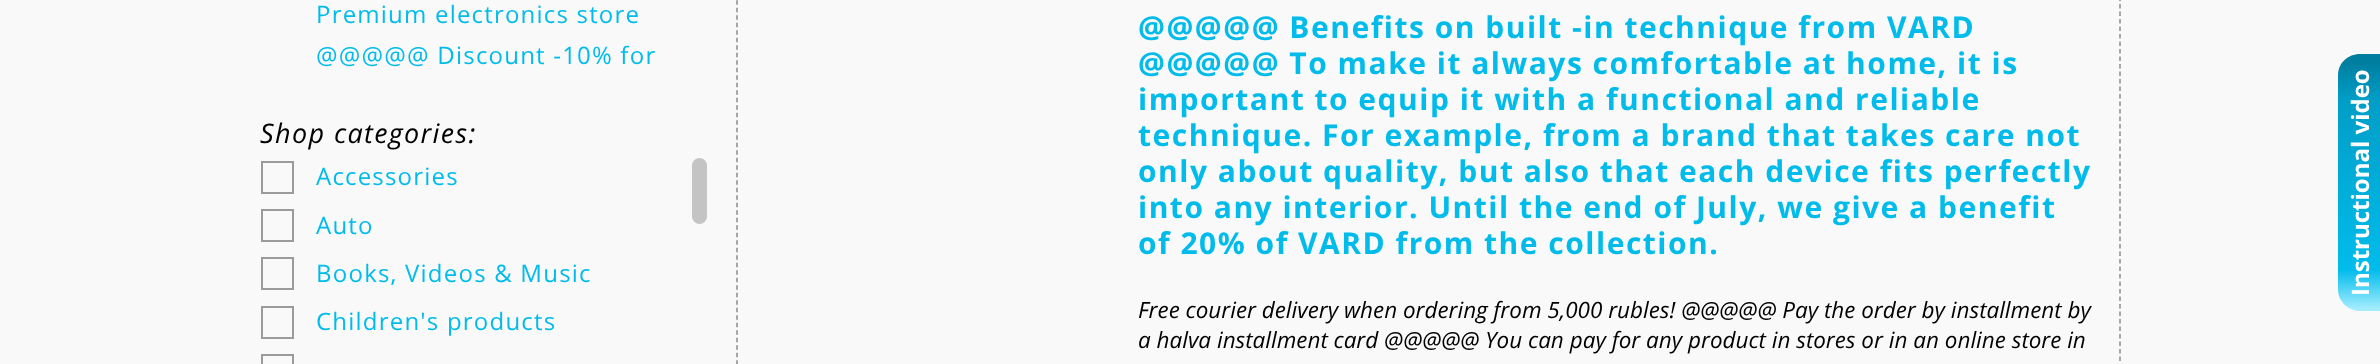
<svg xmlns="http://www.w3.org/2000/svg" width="2380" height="364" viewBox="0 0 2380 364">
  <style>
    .t1 { font: 24px Open Sans; letter-spacing: 1.2px; fill: #01bceb; }
    .t2 { font: italic 27px Open Sans; letter-spacing: 1.4px; fill: #000; }
    .t3 { font: bold 30px Open Sans; letter-spacing: 1.5px; fill: #01bceb; }
    .t4 { font: italic 22.5px Open Sans; fill: #000; }
    .t5 { font: bold 24px Open Sans; fill: #fff; }
  </style>
  <defs>
    <linearGradient id="g1" gradientUnits="userSpaceOnUse" x1="2360" y1="311" x2="2360" y2="54"><stop offset="0.01" stop-color="#a2ecff"/><stop offset="0.16" stop-color="#01bceb"/><stop offset="0.82" stop-color="#009ec7"/><stop offset="0.97" stop-color="#007e9f"/></linearGradient>
  </defs>
  <rect width="100%" height="100%" fill="#f9f9f9"/>
  <text x="316" y="23" class="t1">Premium electronics store</text>
  <text x="316" y="64" class="t1">@@@@@ Discount -10% for</text>
  <text x="260" y="143" class="t2">Shop categories:</text>
  <rect x="262" y="162" width="31" height="31" fill="none" stroke="#9b9b9b" stroke-width="2"/>
  <text x="316" y="185" class="t1">Accessories</text>
  <rect x="262" y="210" width="31" height="31" fill="none" stroke="#9b9b9b" stroke-width="2"/>
  <text x="316" y="234" class="t1">Auto</text>
  <rect x="262" y="258" width="31" height="31" fill="none" stroke="#9b9b9b" stroke-width="2"/>
  <text x="316" y="282" class="t1">Books, Videos &amp; Music</text>
  <rect x="262" y="307" width="31" height="31" fill="none" stroke="#9b9b9b" stroke-width="2"/>
  <text x="316" y="330" class="t1">Children's products</text>
  <rect x="262" y="355" width="31" height="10" fill="none" stroke="#9b9b9b" stroke-width="2"/>
  <rect x="692" y="158" width="15" height="66" rx="7.5" fill="#c4c4c4"/>
  <path d="M753-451H2104.5C2113-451 2120-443.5 2120-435V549C2120 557.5 2113 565 2104.5 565H753C744.5 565 737 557.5 737 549V-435C737-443.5 744.5-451 753-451Z" fill="none" stroke="#8a8a8a" stroke-width="1.5" stroke-dasharray="4.5 3"/>
  <text x="1138" y="38" class="t3">@@@@@ Benefits on built -in technique from VARD</text>
  <text x="1138" y="74" class="t3">@@@@@ To make it always comfortable at home, it is</text>
  <text x="1138" y="110" class="t3">important to equip it with a functional and reliable</text>
  <text x="1138" y="146" class="t3">technique. For example, from a brand that takes care not</text>
  <text x="1138" y="182" class="t3">only about quality, but also that each device fits perfectly</text>
  <text x="1138" y="218" class="t3">into any interior. Until the end of July, we give a benefit</text>
  <text x="1138" y="254" class="t3">of 20% of VARD from the collection.</text>
  <text x="1138" y="318" class="t4">Free courier delivery when ordering from 5,000 rubles! @@@@@ Pay the order by installment by</text>
  <text x="1138" y="348" class="t4">a halva installment card @@@@@ You can pay for any product in stores or in an online store in</text>
  <path d="M2380 311H2360C2348 311 2338 301 2338 290V75C2338 63 2348 54 2360 54H2380Z" fill="url(#g1)"/>
  <text x="2369" y="296" transform="rotate(-90 2369 296)" class="t5">Instructional video</text>
</svg>
